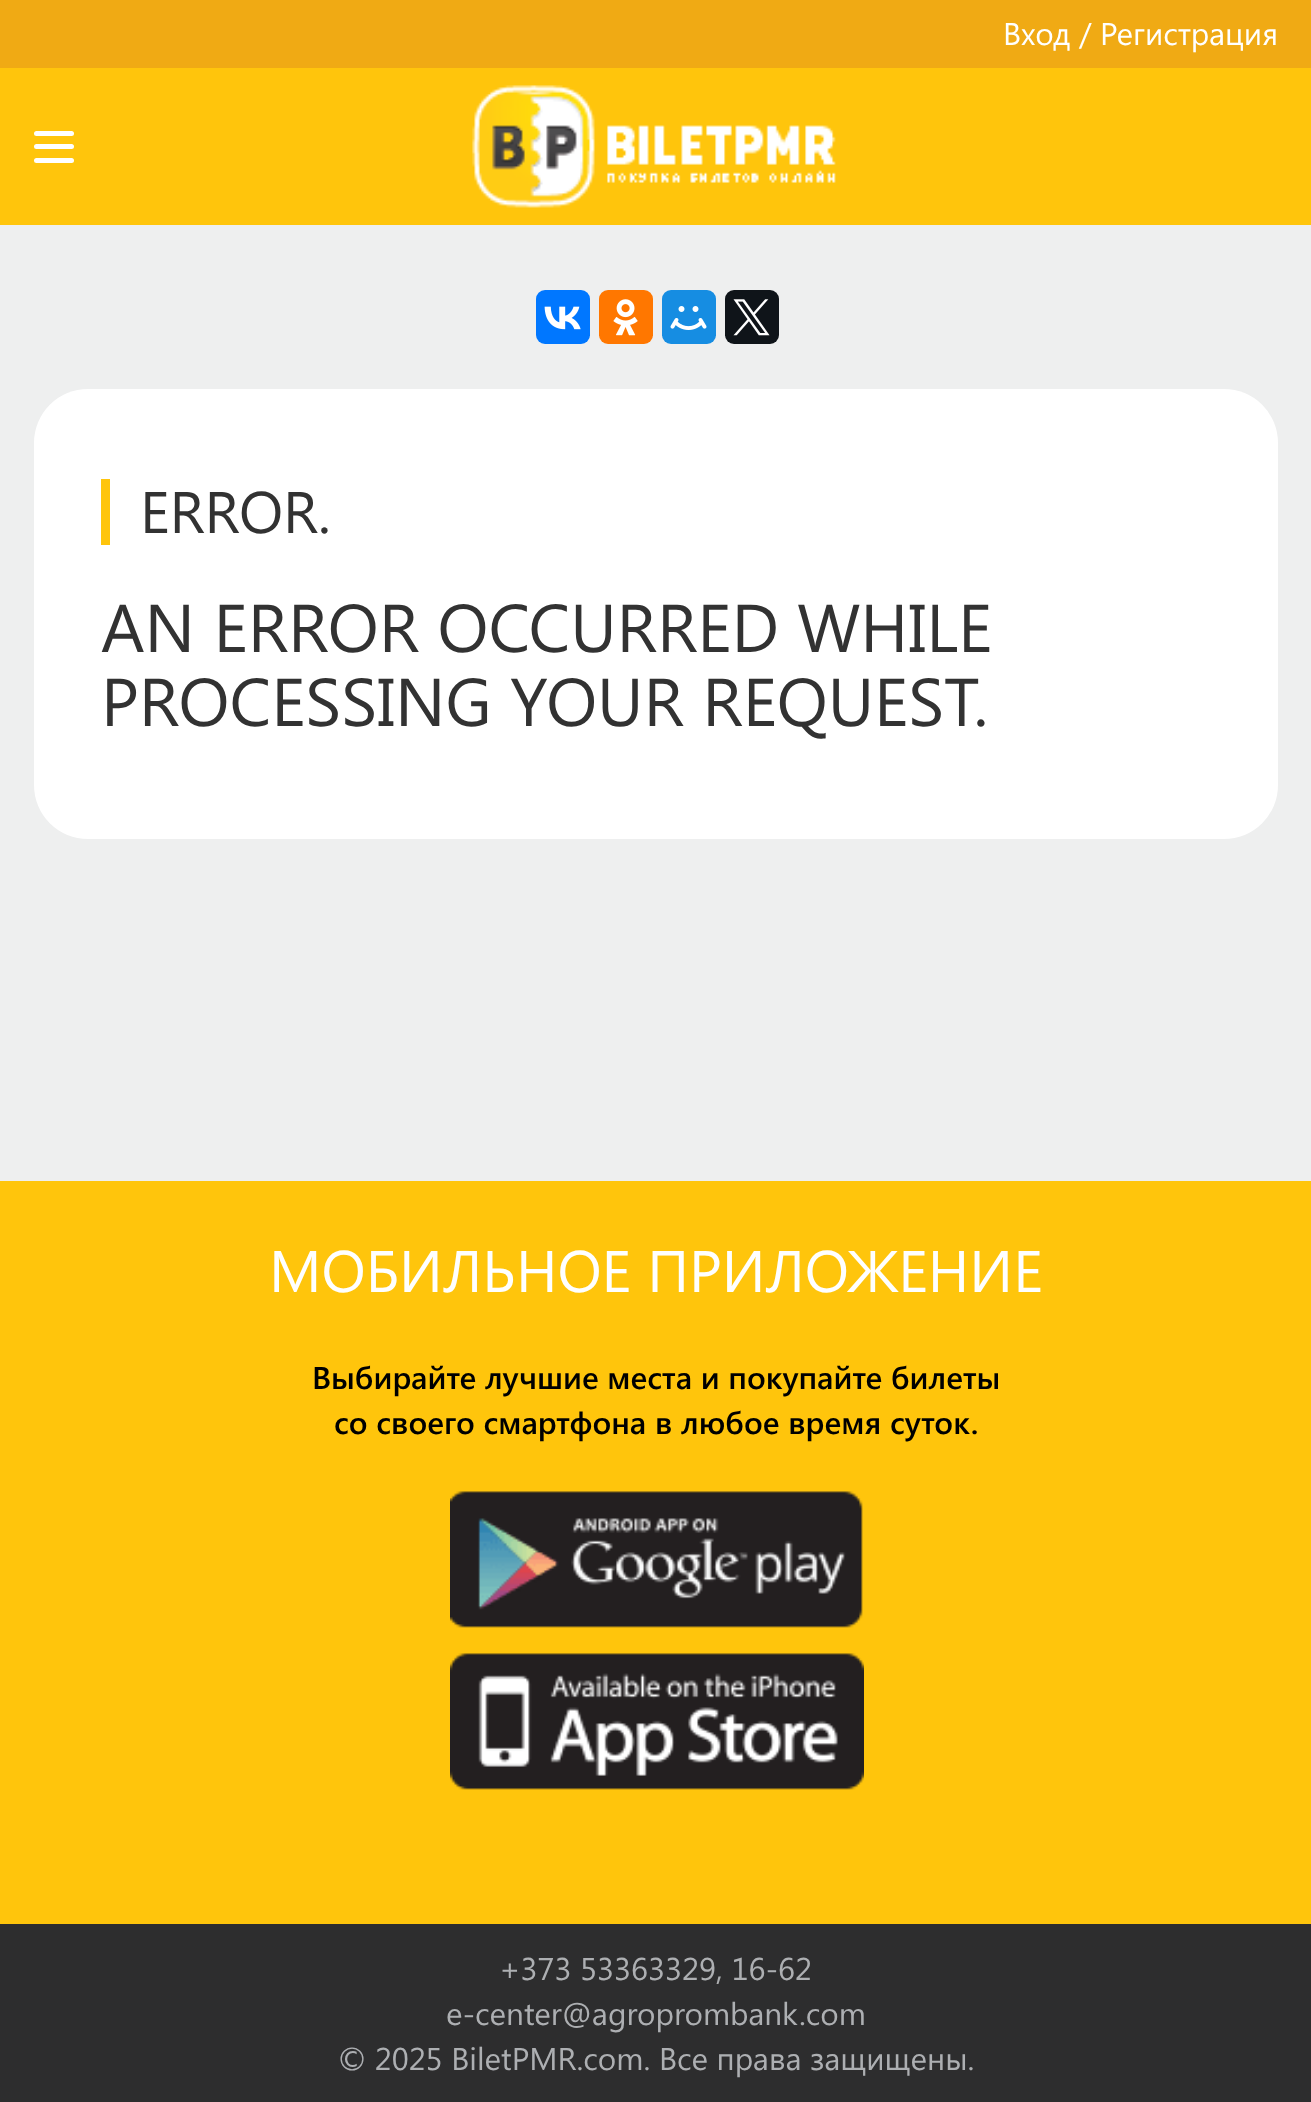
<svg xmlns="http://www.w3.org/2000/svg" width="1311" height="2102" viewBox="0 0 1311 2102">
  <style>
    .t1 { font: 31.5px Segoe UI; fill: #fff; }
    .t2 { font: 58.5px Segoe UI; fill: #323232; }
    .t3 { font: 67.5px Segoe UI; fill: #323232; }
    .t4 { font: 58.5px Segoe UI; fill: #fff; }
    .t5 { font: 600 31.5px Segoe UI; fill: #000; }
    .t6 { font: 31.5px Segoe UI; fill: #adafb2; }
  </style>
  <rect width="100%" height="100%" fill="#eeefef"/>
  <rect x="0" y="0" width="1311" height="68" fill="#f0aa14"/>
  <text x="1003" y="45" class="t1">Вход / Регистрация</text>
  <rect x="0" y="68" width="1311" height="157" fill="#ffc50c"/>
  <rect x="34" y="131" width="40" height="5" rx="2.5" fill="#fff"/>
  <rect x="34" y="144" width="40" height="5" rx="2.5" fill="#fff"/>
  <rect x="34" y="158" width="40" height="5" rx="2.5" fill="#fff"/>
  <image x="472" y="85" width="364" height="123" href="images/1.png"/>
  <rect x="536" y="290" width="54" height="54" rx="9" fill="#07f"/>
  <image x="544" y="306" width="37" height="24" href="images/2.png"/>
  <rect x="599" y="290" width="54" height="54" rx="9" fill="#f70"/>
  <image x="613" y="299" width="25" height="37" href="images/3.png"/>
  <rect x="662" y="290" width="54" height="54" rx="9" fill="#168de2"/>
  <image x="670" y="306" width="37" height="24" href="images/4.png"/>
  <rect x="725" y="290" width="54" height="54" rx="9" fill="#0f1419"/>
  <image x="733" y="299" width="37" height="37" href="images/5.png"/>
  <rect x="34" y="389" width="1244" height="450" rx="54" fill="#fff"/>
  <rect x="101" y="479" width="9" height="66" fill="#ffc50c"/>
  <text x="140" y="533" class="t2">ERROR.</text>
  <text x="101" y="652" class="t3">AN ERROR OCCURRED WHILE</text>
  <text x="101" y="726" class="t3">PROCESSING YOUR REQUEST.</text>
  <rect x="0" y="1181" width="1311" height="743" fill="#ffc50c"/>
  <text x="269" y="1292" class="t4">МОБИЛЬНОЕ ПРИЛОЖЕНИЕ</text>
  <text x="312" y="1389" class="t5">Выбирайте лучшие места и покупайте билеты</text>
  <text x="334" y="1434" class="t5">со своего смартфона в любое время суток.</text>
  <image x="450" y="1491" width="413" height="137" href="images/6.png"/>
  <image x="450" y="1653" width="414" height="137" href="images/7.png"/>
  <rect x="0" y="1924" width="1311" height="178" fill="#2d2d2e"/>
  <text x="499" y="1980" class="t6">+373 53363329, 16-62</text>
  <text x="446" y="2025" class="t6">e-center@agroprombank.com</text>
  <text x="338" y="2070" class="t6">© 2025 BiletPMR.com. Все права защищены.</text>
</svg>
